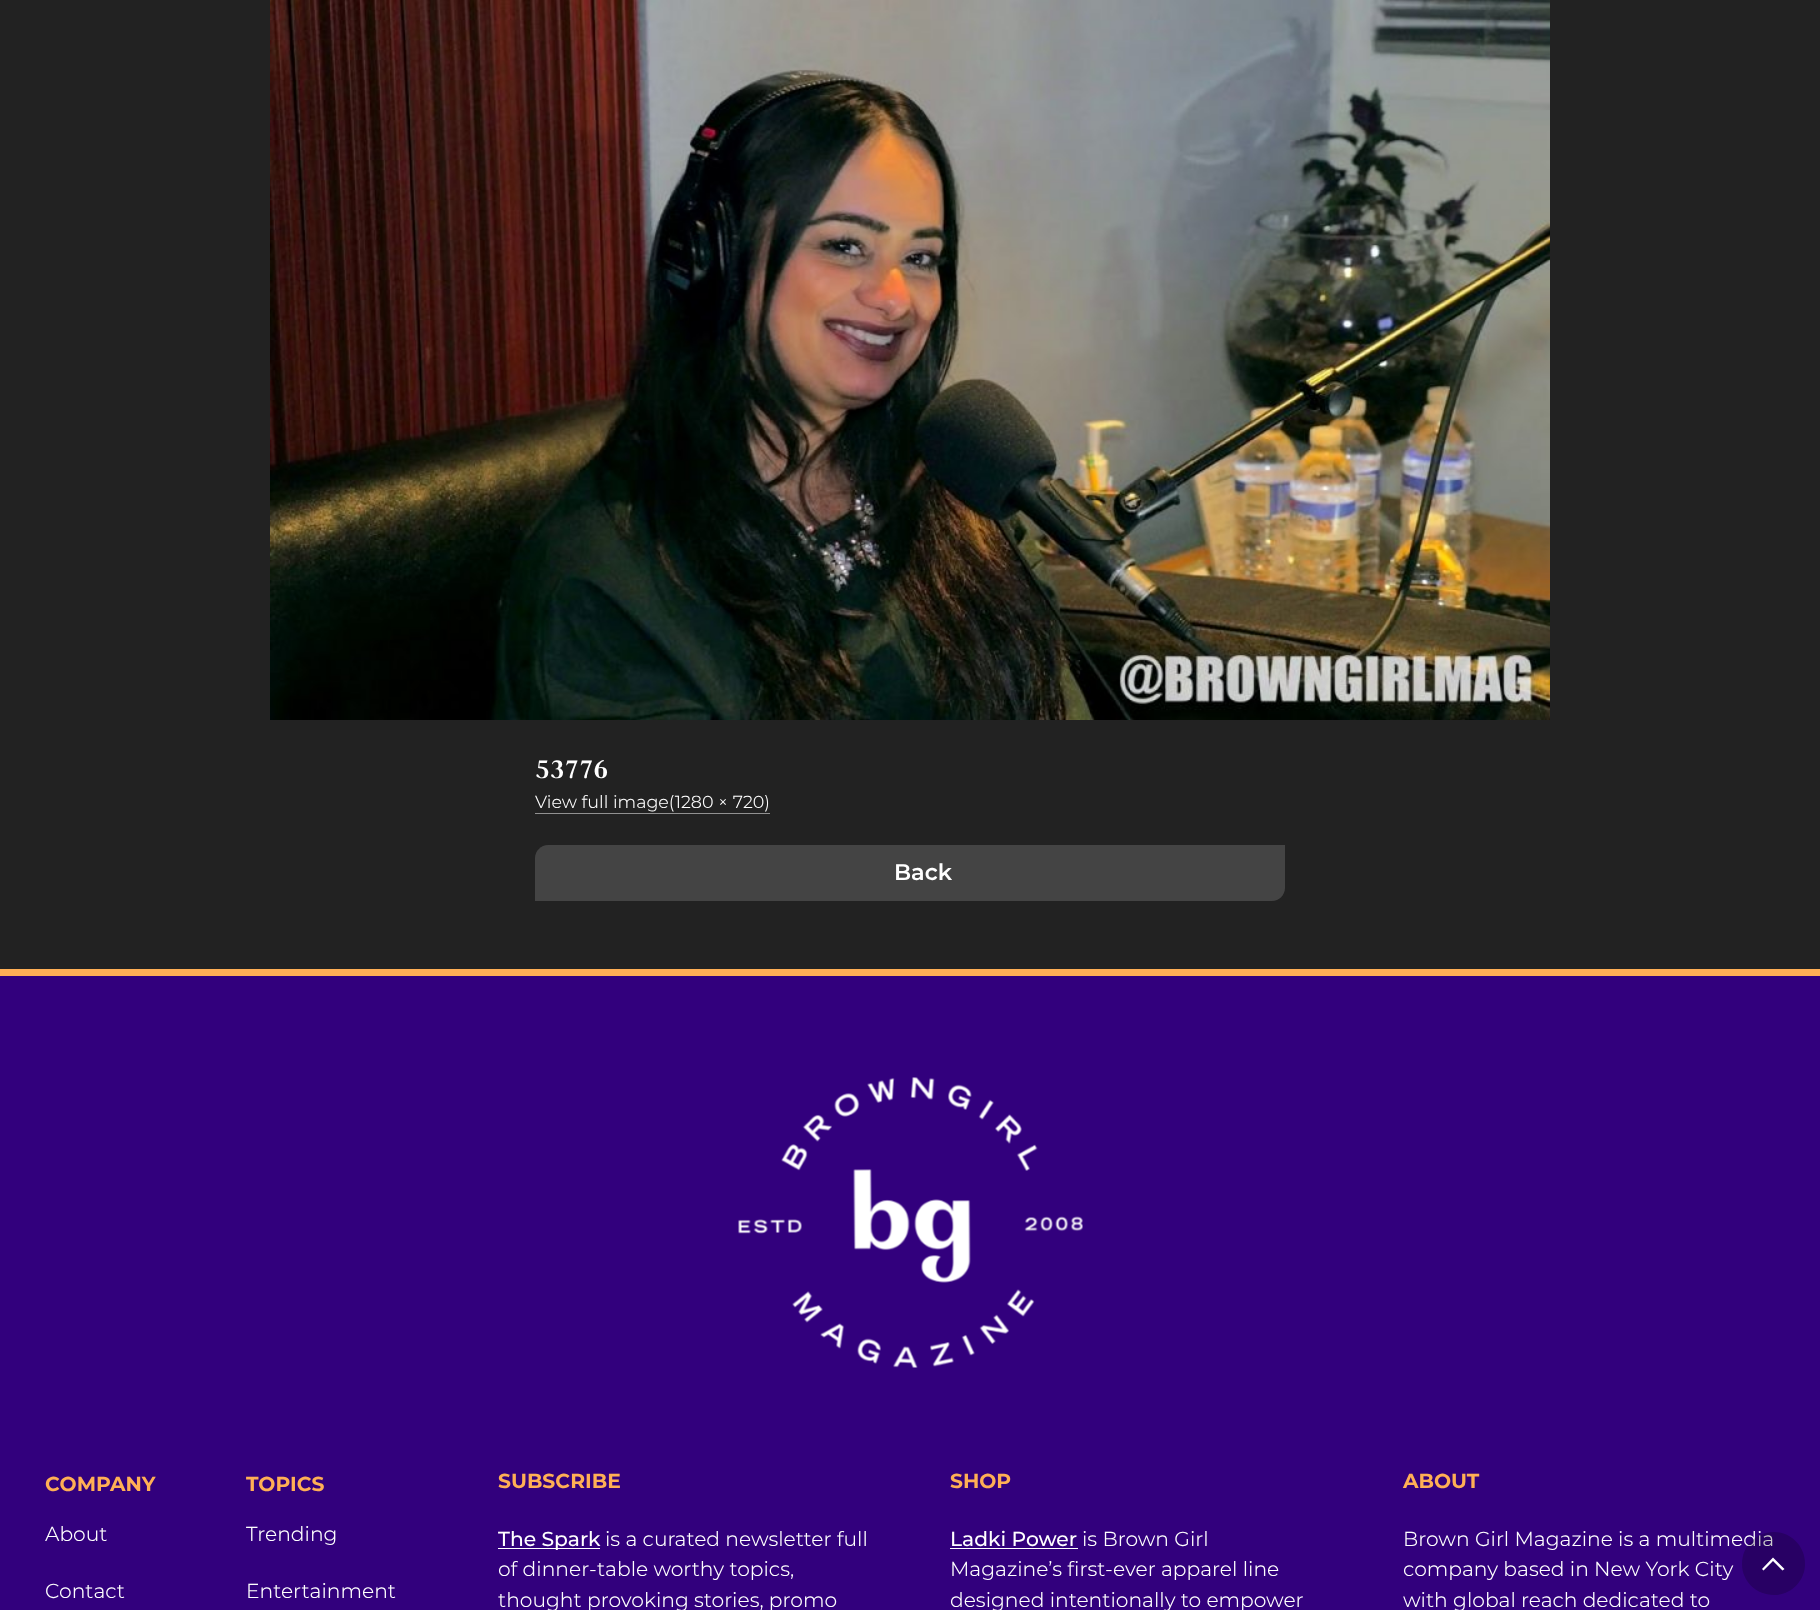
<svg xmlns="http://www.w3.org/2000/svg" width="1820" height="1610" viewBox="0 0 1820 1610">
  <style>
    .t1 { font: bold 30px Judson; fill: #fff; }
    .t2 { font: 300 17.5px Montserrat; fill: #fff; }
    .t3 { font: 600 22.5px Montserrat; fill: #fff; }
    .t4 { font: bold 20.25px Montserrat; fill: #ffaf55; }
    .t5 { font: 300 20.25px Montserrat; fill: #fff; }
    .t6 { font: 500 20.25px Montserrat; fill: #fff; }
  </style>
  <rect width="100%" height="100%" fill="#222"/>
  <image x="270" y="0" width="1280" height="720" href="images/1.png"/>
  <text x="535" y="778" class="t1">53776</text>
  <text x="535" y="808" class="t2">View full image(1280 × 720)</text>
  <rect x="535" y="813" width="235" height="1" fill="#919191"/>
  <path d="M548 845H1285V888C1285 895 1279 901 1272 901H535V858C535 851 541 845 548 845Z" fill="#444"/>
  <text x="894" y="880" class="t3">Back</text>
  <rect x="0" y="976" width="1820" height="634" fill="#32007d"/>
  <rect x="0" y="969" width="1820" height="7" fill="#ffaf55"/>
  <image x="738" y="1077" width="345" height="291" href="images/2.png"/>
  <text x="45" y="1491" class="t4">COMPANY</text>
  <text x="45" y="1541" class="t5">About</text>
  <text x="45" y="1598" class="t5">Contact</text>
  <text x="246" y="1491" class="t4">TOPICS</text>
  <text x="246" y="1541" class="t5">Trending</text>
  <text x="246" y="1598" class="t5">Entertainment</text>
  <text x="498" y="1488" class="t4">SUBSCRIBE</text>
  <rect x="498" y="1548" width="102" height="1" fill="#fff"/>
  <text x="498" y="1546" class="t6">The Spark</text>
  <text x="605" y="1546" class="t5">is a curated newsletter full</text>
  <text x="498" y="1576" class="t5">of dinner-table worthy topics,</text>
  <text x="498" y="1607" class="t5">thought provoking stories, promo</text>
  <text x="950" y="1488" class="t4">SHOP</text>
  <text x="950" y="1546" class="t6">Ladki Power</text>
  <rect x="950" y="1548" width="128" height="1" fill="#fff"/>
  <text x="1082" y="1546" class="t5">is Brown Girl</text>
  <text x="950" y="1576" class="t5">Magazine’s first-ever apparel line</text>
  <text x="950" y="1607" class="t5">designed intentionally to empower</text>
  <text x="1403" y="1488" class="t4">ABOUT</text>
  <text x="1403" y="1546" class="t5">Brown Girl Magazine is a multimedia</text>
  <text x="1403" y="1576" class="t5">company based in New York City</text>
  <text x="1403" y="1607" class="t5">with global reach dedicated to</text>
  <path d="M1805 1564C1805 1581 1791 1595 1774 1595C1756 1595 1742 1581 1742 1564C1742 1546 1756 1532 1774 1532C1791 1532 1805 1546 1805 1564Z" fill="#00000033"/>
  <path d="M1784.5 1569L1782.5 1570.5L1773 1561L1763.5 1570.5L1762 1569L1773 1557.5Z" fill="#fff"/>
</svg>
